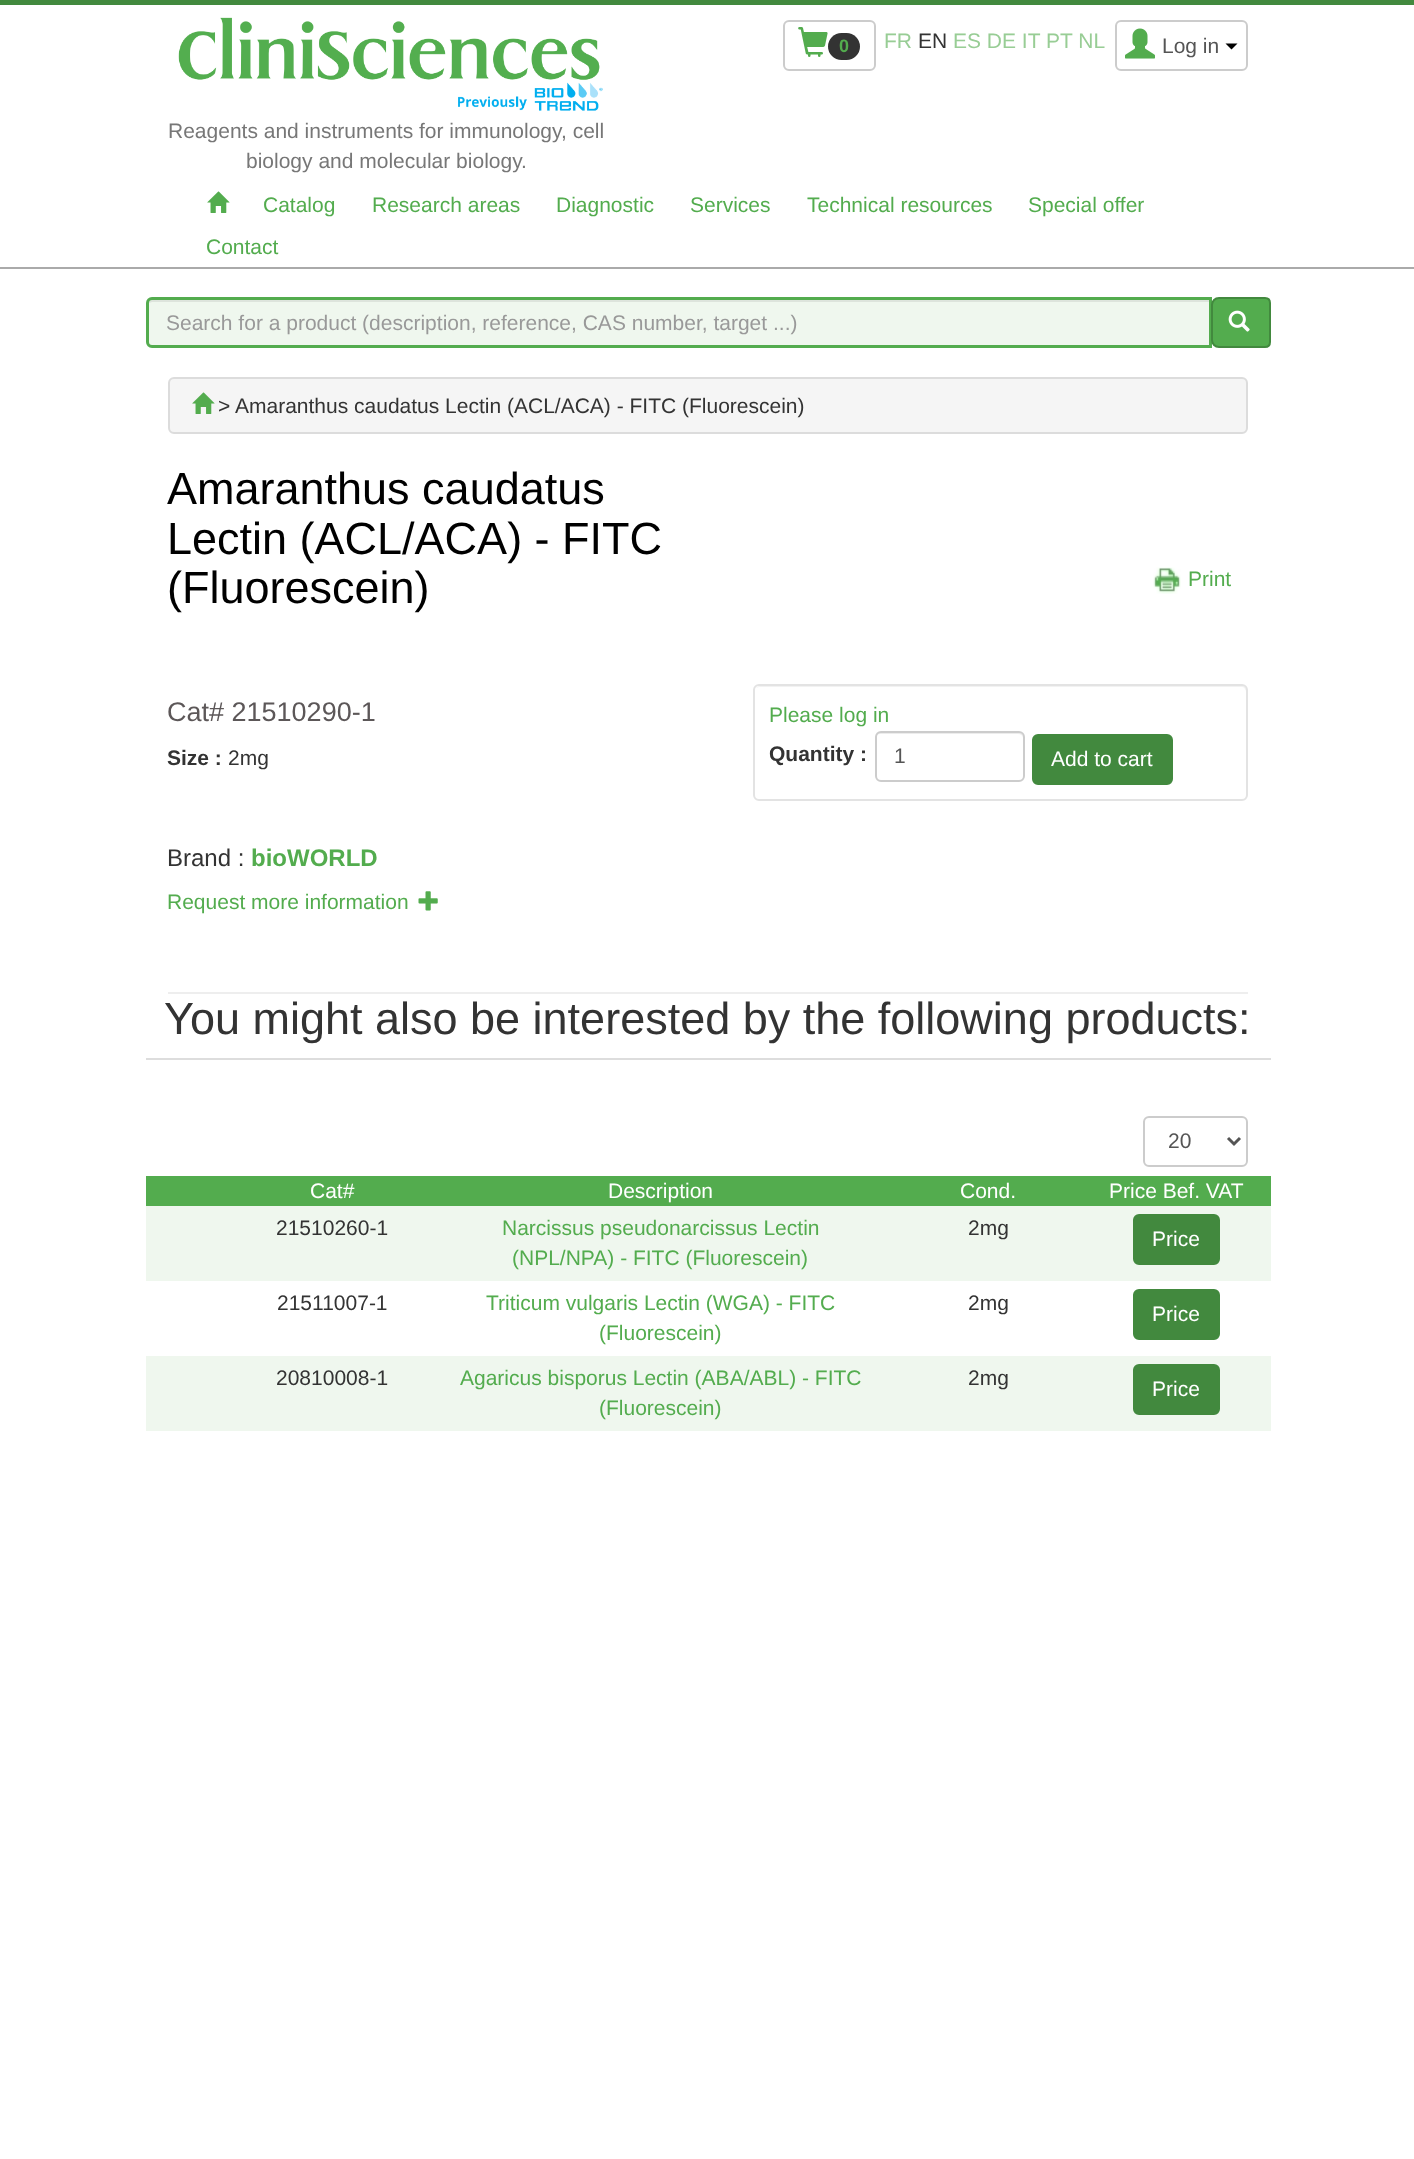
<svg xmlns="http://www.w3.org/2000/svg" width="1414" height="2159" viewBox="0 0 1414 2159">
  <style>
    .t1 { font: bold 18px Liberation Sans; fill: #53ac4e; }
    .t2 { font: 21px Liberation Sans; fill: #98cd95; }
    .t3 { font: 21px Liberation Sans; fill: #333; }
    .t4 { font: 21px Liberation Sans; fill: #555; }
    .t5 { font: 21px Liberation Sans; fill: #777; }
    .t6 { font: 21px Liberation Sans; fill: #53ac4e; }
    .t7 { font: 21px Liberation Sans; fill: #999; }
    .t8 { font: 45px Liberation Sans; fill: #000; }
    .t9 { font: 27px Liberation Sans; fill: #5c5758; }
    .t10 { font: bold 21px Liberation Sans; fill: #333; }
    .t11 { font: 24px Liberation Sans; fill: #333; }
    .t12 { font: bold 24px Liberation Sans; fill: #53ac4e; }
    .t13 { font: 21px Liberation Sans; fill: #fff; }
    .t14 { font: 45px Liberation Sans; fill: #333; }
  </style>
  <rect width="100%" height="100%" fill="#fff"/>
  <rect x="0" y="0" width="1414" height="5" fill="#42893e"/>
  <rect x="0" y="267" width="1414" height="2" fill="#aaa"/>
  <rect x="784" y="21" width="91" height="49" rx="5" fill="none" stroke="#ccc" stroke-width="2"/>
  <image x="798" y="27" width="30" height="30" href="images/1.png"/>
  <rect x="828" y="33" width="32" height="27" rx="13.5" fill="#333"/>
  <text x="839" y="52" class="t1">0</text>
  <text x="884" y="48" class="t2">FR</text>
  <text x="918" y="48" class="t3">EN</text>
  <text x="953" y="48" class="t2">ES DE IT PT NL</text>
  <rect x="1116" y="21" width="131" height="49" rx="5" fill="none" stroke="#ccc" stroke-width="2"/>
  <image x="1125" y="28" width="30" height="31" href="images/2.png"/>
  <text x="1162" y="53" class="t4">Log in</text>
  <path d="M1225.5 43.5H1237.5L1231.5 49.5Z" fill="#000"/>
  <image x="178" y="17" width="425" height="94" href="images/3.png"/>
  <text x="168" y="138" class="t5">Reagents and instruments for immunology, cell</text>
  <text x="246" y="168" class="t5">biology and molecular biology.</text>
  <image x="207" y="191" width="23" height="22" href="images/4.png"/>
  <text x="263" y="212" class="t6">Catalog</text>
  <text x="372" y="212" class="t6">Research areas</text>
  <text x="556" y="212" class="t6">Diagnostic</text>
  <text x="690" y="212" class="t6">Services</text>
  <text x="807" y="212" class="t6">Technical resources</text>
  <text x="1028" y="212" class="t6">Special offer</text>
  <text x="206" y="254" class="t6">Contact</text>
  <path d="M152 297H1212V348H152C148.5 348 146 345.5 146 342V303C146 299.5 148.5 297 152 297Z" fill="#eff7ee"/>
  <path d="M152 302H1209V300H152C150 300 149 301 149 303Z" fill="#dde4dc"/>
  <path d="M152 298.5H1210.5V346.5H152C149.5 346.5 147.5 344.5 147.5 342V303C147.5 300.5 149.5 298.5 152 298.5Z" fill="none" stroke="#53ac4e" stroke-width="3"/>
  <text x="166" y="330" class="t7">Search for a product (description, reference, CAS number, target ...)</text>
  <path d="M1219 298H1265C1268 298 1270 300 1270 303V342C1270 345 1268 347 1265 347H1219C1215 347 1212 344 1212 340V305C1212 301 1215 298 1219 298Z" fill="#53ac4e" stroke="#42893e" stroke-width="2"/>
  <image x="1228" y="310" width="22" height="22" href="images/5.png"/>
  <rect x="169" y="378" width="1078" height="55" rx="5" fill="#f5f5f5" stroke="#dcdcdc" stroke-width="2"/>
  <image x="192" y="392" width="23" height="22" href="images/6.png"/>
  <text x="218" y="413" class="t3">&gt;</text>
  <text x="235" y="413" class="t3">Amaranthus caudatus Lectin (ACL/ACA) - FITC (Fluorescein)</text>
  <text x="167" y="504" class="t8">Amaranthus caudatus</text>
  <text x="167" y="554" class="t8">Lectin (ACL/ACA) - FITC</text>
  <text x="167" y="603" class="t8">(Fluorescein)</text>
  <image x="1153" y="567" width="28" height="27" href="images/7.png"/>
  <text x="1188" y="586" class="t6">Print</text>
  <rect x="168" y="992" width="1080" height="2" fill="#eee"/>
  <text x="167" y="721" class="t9">Cat# 21510290-1</text>
  <text x="167" y="765" class="t10">Size :</text>
  <text x="228" y="765" class="t3">2mg</text>
  <text x="167" y="866" class="t11">Brand :</text>
  <text x="251" y="866" class="t12">bioWORLD</text>
  <text x="167" y="909" class="t6">Request more information</text>
  <image x="418" y="891" width="20" height="20" href="images/8.png"/>
  <path d="M759 687H1242C1244 687 1246 689 1246 692V796L1245 799C1246 798 1247 796 1247 795V691C1247 688 1245 686 1242 686H760C758 686 757 687 756 688Z" fill="#f2f2f2"/>
  <rect x="754" y="685" width="493" height="115" rx="5" fill="none" stroke="#e3e3e3" stroke-width="2"/>
  <text x="769" y="722" class="t6">Please log in</text>
  <text x="769" y="761" class="t10">Quantity :</text>
  <path d="M880 734H1018C1021 734 1023 736 1023 738V737C1023 734 1021 732 1018 732H881C878 732 876 734 876 737V738C876 736 878 734 880 734Z" fill="#ececec"/>
  <rect x="876" y="732" width="148" height="49" rx="5" fill="none" stroke="#ccc" stroke-width="2"/>
  <text x="894" y="763" class="t4">1</text>
  <rect x="1033" y="735" width="139" height="49" rx="5" fill="#42893e" stroke="#42893e" stroke-width="2"/>
  <text x="1051" y="766" class="t13">Add to cart</text>
  <rect x="146" y="1058" width="1125" height="2" fill="#ddd"/>
  <text x="164" y="1034" class="t14">You might also be interested by the following products:</text>
  <rect x="1144" y="1117" width="103" height="49" rx="5" fill="none" stroke="#ccc" stroke-width="2"/>
  <path d="M1228 1138L1234 1144L1240 1138" fill="none" stroke="#555" stroke-width="3"/>
  <text x="1168" y="1148" class="t4">20</text>
  <rect x="146" y="1176" width="1125" height="30" fill="#53ac4e"/>
  <text x="310" y="1198" class="t13">Cat#</text>
  <text x="608" y="1198" class="t13">Description</text>
  <text x="960" y="1198" class="t13">Cond.</text>
  <text x="1109" y="1198" class="t13">Price Bef. VAT</text>
  <rect x="146" y="1206" width="1125" height="75" fill="#eff7ee"/>
  <text x="276" y="1235" class="t3">21510260-1</text>
  <text x="502" y="1235" class="t6">Narcissus pseudonarcissus Lectin</text>
  <text x="512" y="1265" class="t6">(NPL/NPA) - FITC (Fluorescein)</text>
  <text x="968" y="1235" class="t3">2mg</text>
  <rect x="1134" y="1215" width="85" height="49" rx="5" fill="#42893e" stroke="#42893e" stroke-width="2"/>
  <text x="1152" y="1246" class="t13">Price</text>
  <text x="277" y="1310" class="t3">21511007-1</text>
  <text x="486" y="1310" class="t6">Triticum vulgaris Lectin (WGA) - FITC</text>
  <text x="599" y="1340" class="t6">(Fluorescein)</text>
  <text x="968" y="1310" class="t3">2mg</text>
  <rect x="1134" y="1290" width="85" height="49" rx="5" fill="#42893e" stroke="#42893e" stroke-width="2"/>
  <text x="1152" y="1321" class="t13">Price</text>
  <rect x="146" y="1356" width="1125" height="75" fill="#eff7ee"/>
  <text x="276" y="1385" class="t3">20810008-1</text>
  <text x="460" y="1385" class="t6">Agaricus bisporus Lectin (ABA/ABL) - FITC</text>
  <text x="599" y="1415" class="t6">(Fluorescein)</text>
  <text x="968" y="1385" class="t3">2mg</text>
  <rect x="1134" y="1365" width="85" height="49" rx="5" fill="#42893e" stroke="#42893e" stroke-width="2"/>
  <text x="1152" y="1396" class="t13">Price</text>
</svg>
